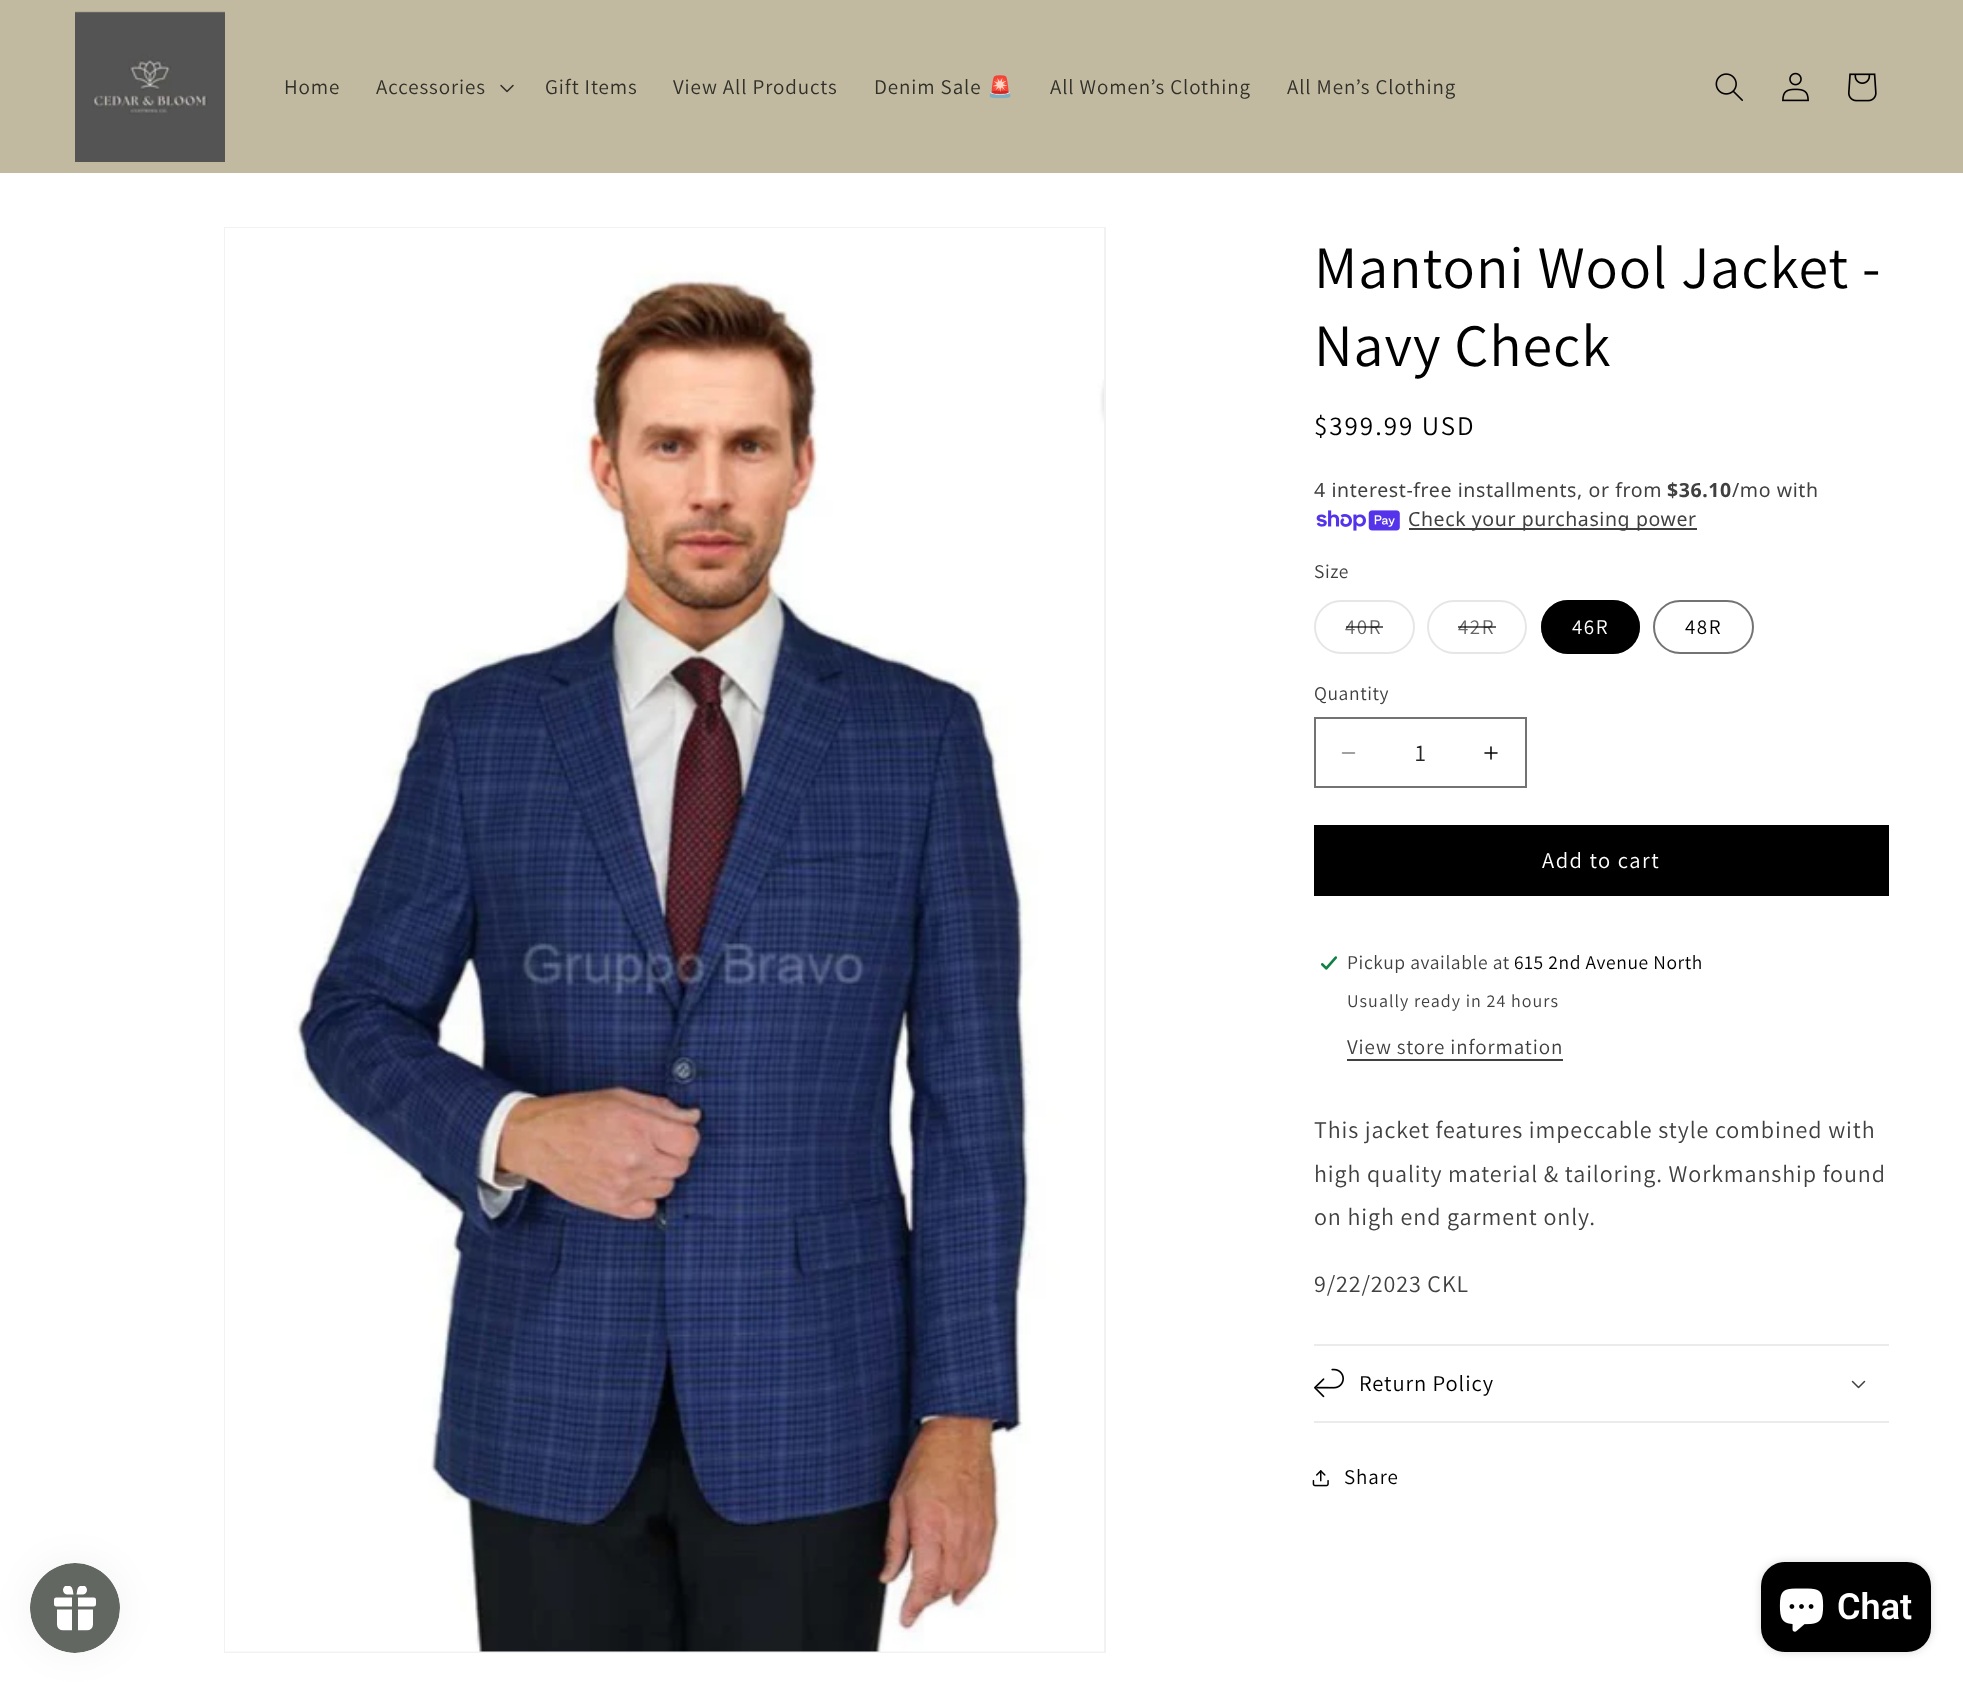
<svg xmlns="http://www.w3.org/2000/svg" width="1963" height="1682" viewBox="0 0 1963 1682">
  <style>
    .t1 { font: 21px Assistant; letter-spacing: 0.9px; fill: #302f28; }
    .t2 { font: 21px Noto Color Emoji; letter-spacing: 0.9px; fill: #302f28; }
    .t3 { font: 60px Assistant; letter-spacing: 0.9px; fill: #000; }
    .t4 { font: 27px Assistant; letter-spacing: 2px; fill: #000; }
    .t5 { font: 19.5px Noto Sans; letter-spacing: 0.6px; fill: #404040; }
    .t6 { font: bold 19.5px Noto Sans; letter-spacing: 0.6px; fill: #404040; }
    .t7 { font: 19.5px Assistant; letter-spacing: 0.6px; fill: #404040; }
    .t8 { font: 21px Assistant; letter-spacing: 1.5px; fill: #666; }
    .t9 { font: 21px Assistant; letter-spacing: 1.5px; fill: #fff; }
    .t10 { font: 21px Assistant; letter-spacing: 1.5px; fill: #000; }
    .t11 { font: 24px Assistant; fill: #262626; }
    .t12 { font: 22.5px Assistant; letter-spacing: 1.5px; fill: #fff; }
    .t13 { font: 19.5px Assistant; letter-spacing: 0.6px; fill: #000; }
    .t14 { font: 18px Assistant; letter-spacing: 1.05px; fill: #404040; }
    .t15 { font: 21px Assistant; letter-spacing: 0.9px; fill: #404040; }
    .t16 { font: 24px Assistant; letter-spacing: 0.9px; fill: #404040; }
    .t17 { font: 22.5px Assistant; letter-spacing: 0.9px; fill: #000; }
    .t18 { font: 21px Assistant; letter-spacing: 0.9px; fill: #000; }
    .t19 { font: 600 36px Roboto; fill: #fff; }
  </style>
  <rect width="100%" height="100%" fill="#fff"/>
  <rect x="0" y="0" width="1963" height="173" fill="#c1baa1"/>
  <image x="75" y="11" width="150" height="151" href="images/1.png"/>
  <text x="284" y="94" class="t1">Home</text>
  <text x="376" y="94" class="t1">Accessories</text>
  <image x="500" y="84" width="14" height="9" href="images/2.png"/>
  <text x="545" y="94" class="t1">Gift Items</text>
  <text x="673" y="94" class="t1">View All Products</text>
  <text x="874" y="94" class="t1">Denim Sale</text>
  <text x="987" y="94" class="t2">🚨</text>
  <text x="1050" y="94" class="t1">All Women’s Clothing</text>
  <text x="1287" y="94" class="t1">All Men’s Clothing</text>
  <image x="1715" y="73" width="28" height="28" href="images/3.png"/>
  <image x="1782" y="72" width="27" height="30" href="images/4.png"/>
  <image x="1848" y="73" width="29" height="29" href="images/5.png"/>
  <rect x="225" y="228" width="880" height="1424" fill="none" stroke="#f2f2f2" stroke-width="2"/>
  <image x="225" y="228" width="879" height="1424" href="images/6.png"/>
  <text x="1314" y="288" class="t3">Mantoni Wool Jacket -</text>
  <text x="1314" y="366" class="t3">Navy Check</text>
  <text x="1314" y="435" class="t4">$399.99 USD</text>
  <text x="1314" y="497" class="t5">4 interest-free installments, or from</text>
  <text x="1667" y="497" class="t6">$36.10</text>
  <text x="1732" y="497" class="t5">/mo with</text>
  <image x="1316" y="510" width="84" height="21" href="images/7.png"/>
  <rect x="1409" y="528" width="288" height="2" fill="#404040"/>
  <text x="1408" y="526" class="t5">Check your purchasing power</text>
  <text x="1314" y="578" class="t7">Size</text>
  <rect x="1315" y="601" width="99" height="52" rx="26" fill="none" stroke="#e6e6e6" stroke-width="2"/>
  <text x="1345" y="634" class="t8">40R</text>
  <rect x="1346" y="626" width="37" height="2" fill="#00000099"/>
  <rect x="1428" y="601" width="98" height="52" rx="26" fill="none" stroke="#e6e6e6" stroke-width="2"/>
  <text x="1458" y="634" class="t8">42R</text>
  <rect x="1458" y="626" width="38" height="2" fill="#00000099"/>
  <rect x="1541" y="600" width="99" height="54" rx="27" fill="#000"/>
  <rect x="1542" y="601" width="97" height="52" rx="26" fill="none" stroke="#0000008c" stroke-width="2"/>
  <text x="1572" y="634" class="t9">46R</text>
  <rect x="1654" y="601" width="99" height="52" rx="26" fill="none" stroke="#737373" stroke-width="2"/>
  <text x="1685" y="634" class="t10">48R</text>
  <text x="1314" y="700" class="t7">Quantity</text>
  <image x="1341" y="752" width="15" height="2" href="images/8.png"/>
  <image x="1484" y="746" width="14" height="14" href="images/9.png"/>
  <rect x="1315" y="718" width="211" height="69" fill="none" stroke="#737373" stroke-width="2"/>
  <text x="1415" y="761" class="t11">1</text>
  <rect x="1314" y="825" width="575" height="71" fill="#000"/>
  <text x="1542" y="868" class="t12">Add to cart</text>
  <image x="1320" y="956" width="18" height="14" href="images/10.png"/>
  <text x="1347" y="969" class="t7">Pickup available at</text>
  <text x="1514" y="969" class="t13">615 2nd Avenue North</text>
  <text x="1347" y="1007" class="t14">Usually ready in 24 hours</text>
  <text x="1347" y="1054" class="t15">View store information</text>
  <rect x="1347" y="1059" width="216" height="2" fill="#404040"/>
  <text x="1314" y="1138" class="t16">This jacket features impeccable style combined with</text>
  <text x="1314" y="1182" class="t16">high quality material &amp; tailoring. Workmanship found</text>
  <text x="1314" y="1225" class="t16">on high end garment only.</text>
  <text x="1314" y="1292" class="t16">9/22/2023 CKL</text>
  <rect x="1314" y="1344" width="575" height="2" fill="#ebebeb"/>
  <rect x="1314" y="1421" width="575" height="2" fill="#ebebeb"/>
  <image x="1314" y="1368" width="30" height="30" href="images/11.png"/>
  <text x="1359" y="1391" class="t17">Return Policy</text>
  <image x="1851" y="1380" width="15" height="9" href="images/12.png"/>
  <image x="1312" y="1470" width="17" height="17" href="images/13.png"/>
  <text x="1344" y="1484" class="t18">Share</text>
  <rect x="30" y="1563" width="90" height="90" rx="45" fill="#0000000d" filter="blur(19px)"/>
  <image x="30" y="1563" width="90" height="90" href="images/14.png"/>
  <rect x="1761" y="1562" width="170" height="90" rx="24" fill="#00000026" filter="blur(4px)"/>
  <rect x="1761" y="1562" width="170" height="90" rx="24" fill="#000"/>
  <image x="1779" y="1588" width="45" height="44" href="images/15.png"/>
  <text x="1837" y="1619" class="t19">Chat</text>
</svg>
